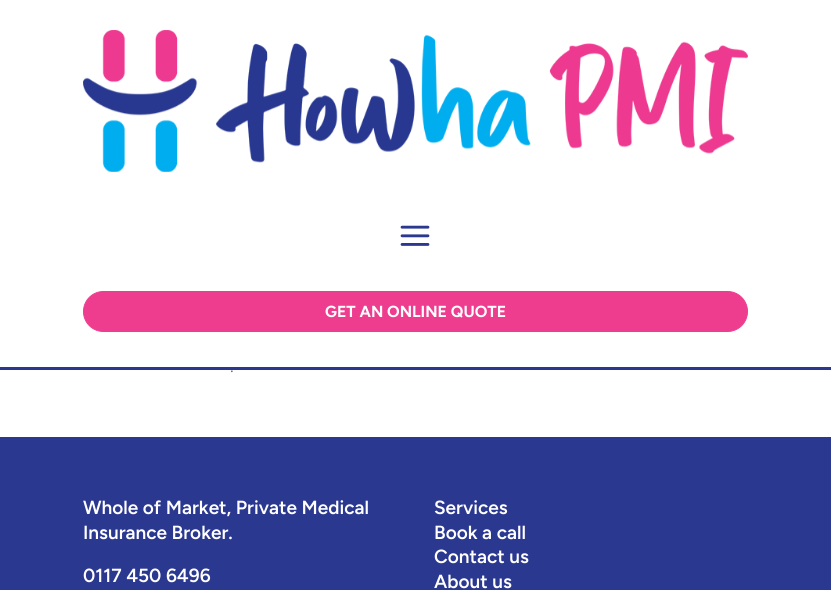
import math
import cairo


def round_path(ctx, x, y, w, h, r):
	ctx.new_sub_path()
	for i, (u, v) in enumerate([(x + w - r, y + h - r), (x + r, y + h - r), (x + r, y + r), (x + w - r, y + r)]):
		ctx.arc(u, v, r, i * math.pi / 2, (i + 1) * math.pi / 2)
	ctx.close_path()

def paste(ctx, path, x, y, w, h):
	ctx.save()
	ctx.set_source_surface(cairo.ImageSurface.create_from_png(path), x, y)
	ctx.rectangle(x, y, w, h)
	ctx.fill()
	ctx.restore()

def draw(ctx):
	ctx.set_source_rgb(1, 1, 1)
	ctx.paint()
	ctx.set_source_rgb(0.169, 0.22, 0.565)
	ctx.rectangle(0, 367, 831, 3)
	ctx.fill()
	paste(ctx, 'media/1.png', 83, 30, 665, 142)
	paste(ctx, 'media/2.png', 400, 225, 30, 21)
	ctx.set_source_rgb(0.933, 0.239, 0.561)
	round_path(ctx, 83.5, 291.5, 664, 40, 20)
	ctx.fill_preserve()
	ctx.set_line_width(1)
	ctx.stroke()
	ctx.select_font_face('Figtree', cairo.FONT_SLANT_NORMAL, cairo.FONT_WEIGHT_BOLD)
	ctx.set_font_size(16)
	ctx.set_source_rgb(1, 1, 1)
	ctx.move_to(325, 317)
	ctx.show_text('GET AN ONLINE QUOTE')
	ctx.select_font_face('Open Sans')
	ctx.set_font_size(14)
	ctx.set_source_rgb(0.4, 0.4, 0.4)
	ctx.move_to(230, 372)
	ctx.show_text('.')
	ctx.set_source_rgb(0.169, 0.22, 0.565)
	ctx.rectangle(0, 437, 831, 153)
	ctx.fill()
	ctx.select_font_face('Figtree SemiBold')
	ctx.set_font_size(19)
	ctx.set_source_rgb(1, 1, 1)
	for x, y, s in [
		(83, 514, 'Whole of Market, Private Medical'),
		(83, 539, 'Insurance Broker.'),
		(83, 582, '0117 450 6496'),
		(434, 514, 'Services'),
		(434, 539, 'Book a call'),
		(434, 563, 'Contact us'),
		(434, 588, 'About us'),
	]:
		ctx.move_to(x, y)
		ctx.show_text(s)


surface = cairo.ImageSurface(cairo.FORMAT_RGB24, 831, 590)
ctx = cairo.Context(surface)
options = cairo.FontOptions()
options.set_hint_metrics(cairo.HINT_METRICS_OFF)
options.set_hint_style(cairo.HINT_STYLE_NONE)
ctx.set_font_options(options)
ctx.set_miter_limit(4)
draw(ctx)
surface.write_to_png('image.png')
